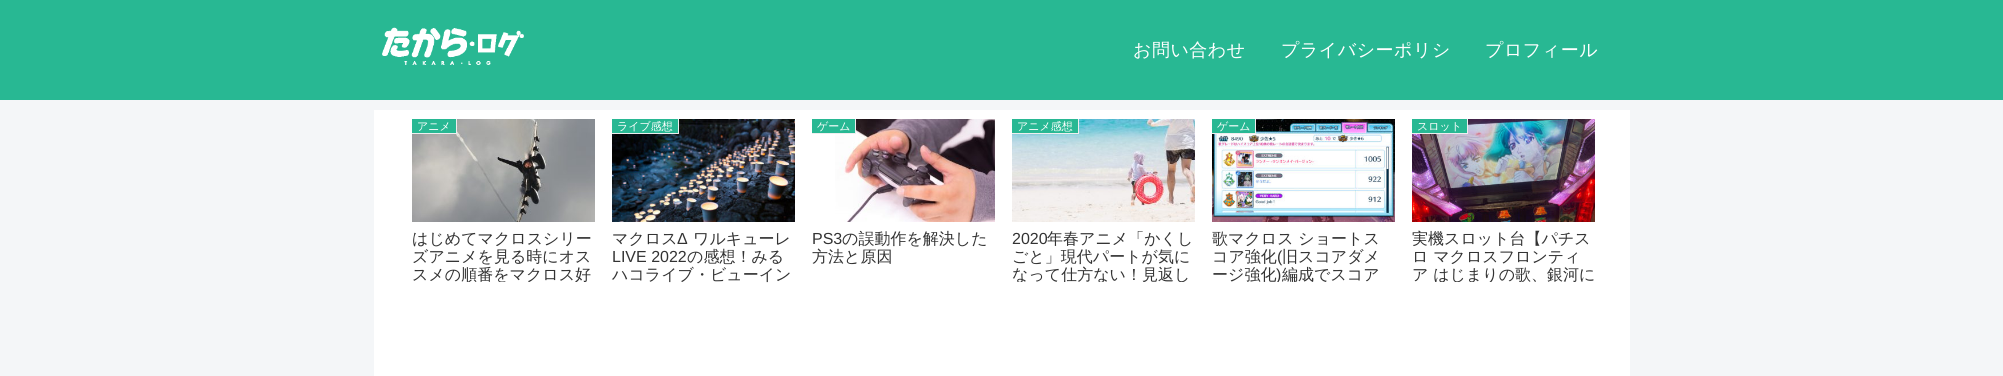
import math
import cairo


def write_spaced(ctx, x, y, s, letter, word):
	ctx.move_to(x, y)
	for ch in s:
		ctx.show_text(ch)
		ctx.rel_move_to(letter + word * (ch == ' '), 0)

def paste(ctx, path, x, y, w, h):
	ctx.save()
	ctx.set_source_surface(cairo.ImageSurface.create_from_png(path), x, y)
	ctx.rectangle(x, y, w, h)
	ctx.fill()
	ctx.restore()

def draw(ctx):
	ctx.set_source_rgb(0.957, 0.961, 0.969)
	ctx.paint()
	ctx.set_source_rgb(0.157, 0.722, 0.576)
	ctx.rectangle(0, 0, 2003, 100)
	ctx.fill()
	paste(ctx, 'media/1.png', 382, 27, 142, 38)
	ctx.select_font_face('WenQuanYi Zen Hei Medium')
	ctx.set_font_size(18)
	ctx.set_source_rgb(1, 1, 1)
	for x, y, s in [
		(1133, 56, 'お問い合わせ'),
		(1281, 56, 'プライバシーポリシ'),
		(1485, 56, 'プロフィール'),
	]:
		write_spaced(ctx, x, y, s, 0.5, 0)
	ctx.rectangle(374, 110, 1256, 266)
	ctx.fill()
	paste(ctx, 'media/2.png', 412, 119, 183, 103)
	ctx.set_source_rgb(0.157, 0.722, 0.576)
	ctx.rectangle(412, 119, 44, 14)
	ctx.fill()
	ctx.set_source_rgb(0.933, 0.933, 0.933)
	ctx.rectangle(456, 119, 1, 15)
	ctx.rectangle(412, 133, 45, 1)
	ctx.fill()
	ctx.set_font_size(11)
	ctx.set_source_rgb(1, 1, 1)
	ctx.move_to(417, 130)
	ctx.show_text('アニメ')
	ctx.set_font_size(16)
	ctx.set_source_rgb(0.2, 0.2, 0.2)
	ctx.move_to(412, 244)
	ctx.show_text('はじめてマクロスシリー')
	ctx.move_to(412, 262)
	ctx.show_text('ズアニメを見る時にオス')
	ctx.save()
	ctx.rectangle(412, 230, 183, 52)
	ctx.clip()
	ctx.move_to(412, 280)
	ctx.show_text('スメの順番をマクロス好')
	ctx.restore()
	paste(ctx, 'media/3.png', 612, 119, 183, 103)
	ctx.set_source_rgb(0.157, 0.722, 0.576)
	ctx.rectangle(612, 119, 66, 14)
	ctx.fill()
	ctx.set_source_rgb(0.933, 0.933, 0.933)
	ctx.rectangle(678, 119, 1, 15)
	ctx.rectangle(612, 133, 67, 1)
	ctx.fill()
	ctx.set_font_size(11)
	ctx.set_source_rgb(1, 1, 1)
	ctx.move_to(617, 130)
	ctx.show_text('ライブ感想')
	ctx.set_font_size(16)
	ctx.set_source_rgb(0.2, 0.2, 0.2)
	ctx.move_to(612, 244)
	ctx.show_text('マクロス')
	ctx.select_font_face('Liberation Sans')
	ctx.move_to(677, 244)
	ctx.show_text('Δ')
	ctx.select_font_face('WenQuanYi Zen Hei Medium')
	ctx.move_to(693, 244)
	ctx.show_text('ワルキューレ')
	ctx.select_font_face('Liberation Sans')
	ctx.move_to(612, 262)
	ctx.show_text('LIVE 2022')
	ctx.select_font_face('WenQuanYi Zen Hei Medium')
	ctx.move_to(687, 262)
	ctx.show_text('の感想！みる')
	ctx.move_to(612, 280)
	ctx.show_text('ハコライブ・ビューイン')
	paste(ctx, 'media/4.png', 835, 119, 160, 103)
	ctx.set_source_rgb(0.157, 0.722, 0.576)
	ctx.rectangle(812, 119, 43, 14)
	ctx.fill()
	ctx.set_source_rgb(0.933, 0.933, 0.933)
	ctx.rectangle(855, 119, 1, 15)
	ctx.rectangle(812, 133, 44, 1)
	ctx.fill()
	ctx.set_font_size(11)
	ctx.set_source_rgb(1, 1, 1)
	ctx.move_to(817, 130)
	ctx.show_text('ゲーム')
	ctx.select_font_face('Liberation Sans')
	ctx.set_font_size(16)
	ctx.set_source_rgb(0.2, 0.2, 0.2)
	ctx.move_to(812, 244)
	ctx.show_text('PS3')
	ctx.select_font_face('WenQuanYi Zen Hei Medium')
	ctx.move_to(842, 244)
	ctx.show_text('の誤動作を解決した')
	ctx.move_to(812, 262)
	ctx.show_text('方法と原因')
	paste(ctx, 'media/5.png', 1012, 119, 183, 103)
	ctx.set_source_rgb(0.157, 0.722, 0.576)
	ctx.rectangle(1012, 119, 66, 14)
	ctx.fill()
	ctx.set_source_rgb(0.933, 0.933, 0.933)
	ctx.rectangle(1078, 119, 1, 15)
	ctx.rectangle(1012, 133, 67, 1)
	ctx.fill()
	ctx.set_font_size(11)
	ctx.set_source_rgb(1, 1, 1)
	ctx.move_to(1017, 130)
	ctx.show_text('アニメ感想')
	ctx.select_font_face('Liberation Sans')
	ctx.set_font_size(16)
	ctx.set_source_rgb(0.2, 0.2, 0.2)
	ctx.move_to(1012, 244)
	ctx.show_text('2020')
	ctx.select_font_face('WenQuanYi Zen Hei Medium')
	ctx.move_to(1047, 244)
	ctx.show_text('年春アニメ「かくし')
	ctx.move_to(1012, 262)
	ctx.show_text('ごと」現代パートが気に')
	ctx.save()
	ctx.rectangle(1012, 230, 183, 52)
	ctx.clip()
	ctx.move_to(1012, 280)
	ctx.show_text('なって仕方ない！見返し')
	ctx.restore()
	paste(ctx, 'media/6.png', 1212, 119, 183, 103)
	ctx.set_source_rgb(0.157, 0.722, 0.576)
	ctx.rectangle(1212, 119, 43, 14)
	ctx.fill()
	ctx.set_source_rgb(0.933, 0.933, 0.933)
	ctx.rectangle(1255, 119, 1, 15)
	ctx.rectangle(1212, 133, 44, 1)
	ctx.fill()
	ctx.set_font_size(11)
	ctx.set_source_rgb(1, 1, 1)
	ctx.move_to(1217, 130)
	ctx.show_text('ゲーム')
	ctx.set_font_size(16)
	ctx.set_source_rgb(0.2, 0.2, 0.2)
	ctx.move_to(1212, 244)
	ctx.show_text('歌マクロス ショートス')
	ctx.move_to(1212, 262)
	ctx.show_text('コア強化')
	ctx.select_font_face('Liberation Sans')
	ctx.move_to(1277, 262)
	ctx.show_text('(')
	ctx.select_font_face('WenQuanYi Zen Hei Medium')
	ctx.move_to(1282, 262)
	ctx.show_text('旧スコアダメ')
	ctx.move_to(1212, 280)
	ctx.show_text('ージ強化')
	ctx.save()
	ctx.rectangle(1212, 230, 183, 52)
	ctx.clip()
	ctx.select_font_face('Liberation Sans')
	ctx.move_to(1276, 280)
	ctx.show_text(')')
	ctx.restore()
	ctx.move_to(1282, 280)
	ctx.show_text('編成でスコア')
	paste(ctx, 'media/7.png', 1412, 119, 183, 103)
	ctx.set_source_rgb(0.157, 0.722, 0.576)
	ctx.rectangle(1412, 119, 55, 14)
	ctx.fill()
	ctx.set_source_rgb(0.933, 0.933, 0.933)
	ctx.rectangle(1467, 119, 1, 15)
	ctx.rectangle(1412, 133, 56, 1)
	ctx.fill()
	ctx.set_font_size(11)
	ctx.set_source_rgb(1, 1, 1)
	ctx.move_to(1417, 130)
	ctx.show_text('スロット')
	ctx.set_font_size(16)
	ctx.set_source_rgb(0.2, 0.2, 0.2)
	ctx.move_to(1412, 244)
	ctx.show_text('実機スロット台【パチス')
	ctx.move_to(1412, 262)
	ctx.show_text('ロ マクロスフロンティ')
	ctx.save()
	ctx.rectangle(1412, 230, 183, 52)
	ctx.clip()
	ctx.move_to(1412, 280)
	ctx.show_text('ア はじまりの歌、銀河に')
	ctx.restore()


surface = cairo.ImageSurface(cairo.FORMAT_RGB24, 2003, 376)
ctx = cairo.Context(surface)
options = cairo.FontOptions()
options.set_hint_metrics(cairo.HINT_METRICS_OFF)
options.set_hint_style(cairo.HINT_STYLE_NONE)
ctx.set_font_options(options)
ctx.set_miter_limit(4)
draw(ctx)
surface.write_to_png('image.png')
